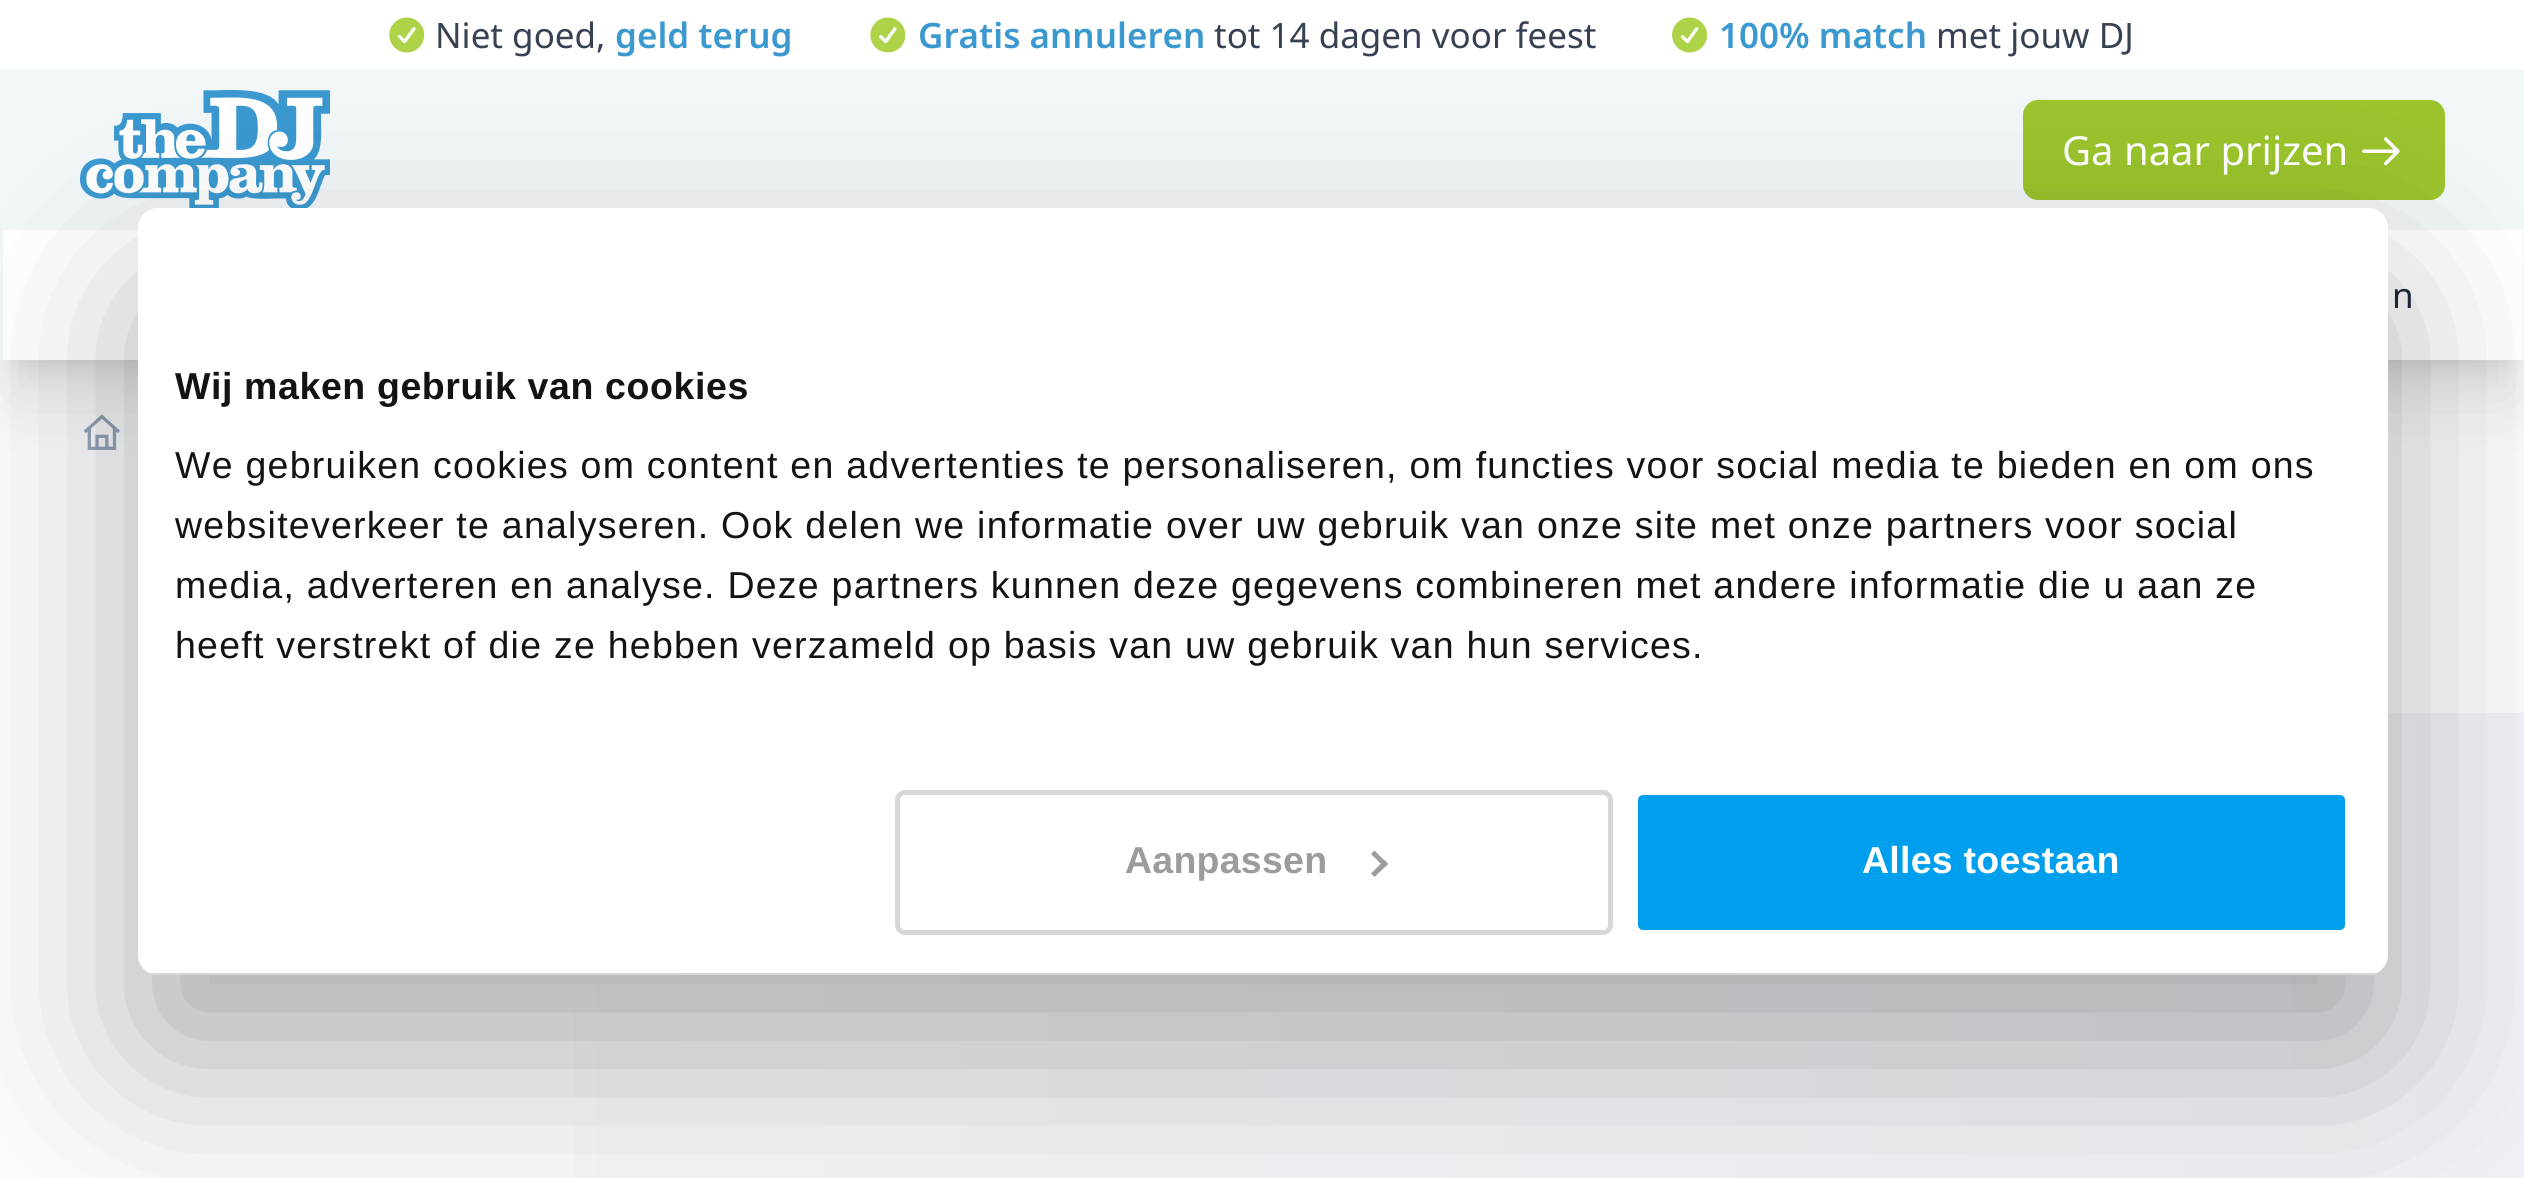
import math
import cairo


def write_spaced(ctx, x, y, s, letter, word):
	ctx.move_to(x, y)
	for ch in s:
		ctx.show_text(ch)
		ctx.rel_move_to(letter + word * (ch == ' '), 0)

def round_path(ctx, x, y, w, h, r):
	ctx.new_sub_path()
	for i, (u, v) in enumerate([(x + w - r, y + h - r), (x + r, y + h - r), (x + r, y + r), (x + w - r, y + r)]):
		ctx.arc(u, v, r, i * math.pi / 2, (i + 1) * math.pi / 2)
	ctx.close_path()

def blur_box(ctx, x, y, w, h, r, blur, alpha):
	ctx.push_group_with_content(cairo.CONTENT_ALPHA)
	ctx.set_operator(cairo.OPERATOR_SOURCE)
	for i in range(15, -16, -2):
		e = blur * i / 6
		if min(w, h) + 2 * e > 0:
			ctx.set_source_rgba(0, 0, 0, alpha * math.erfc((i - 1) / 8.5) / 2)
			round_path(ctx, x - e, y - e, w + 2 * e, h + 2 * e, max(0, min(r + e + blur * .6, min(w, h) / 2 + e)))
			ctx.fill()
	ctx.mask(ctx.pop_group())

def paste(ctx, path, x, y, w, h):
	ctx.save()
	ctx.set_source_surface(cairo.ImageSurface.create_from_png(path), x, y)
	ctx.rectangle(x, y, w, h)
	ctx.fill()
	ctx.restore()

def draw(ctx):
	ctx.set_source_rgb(0.973, 0.98, 0.988)
	ctx.paint()
	ctx.set_source_rgb(1, 1, 1)
	ctx.rectangle(0, 0, 2524, 70)
	ctx.fill()
	paste(ctx, 'media/1.png', 389, 17, 36, 36)
	ctx.select_font_face('Noto Sans')
	ctx.set_font_size(35)
	ctx.set_source_rgb(0.216, 0.255, 0.318)
	ctx.move_to(435, 48)
	ctx.show_text('Niet goed,')
	ctx.select_font_face('Noto Sans SemiBold')
	ctx.set_source_rgb(0.231, 0.6, 0.816)
	ctx.move_to(615, 48)
	ctx.show_text('geld terug')
	paste(ctx, 'media/2.png', 870, 17, 36, 36)
	ctx.move_to(918, 48)
	ctx.show_text('Gratis annuleren')
	ctx.select_font_face('Noto Sans')
	ctx.set_source_rgb(0.216, 0.255, 0.318)
	ctx.move_to(1214, 48)
	ctx.show_text('tot 14 dagen voor feest')
	paste(ctx, 'media/3.png', 1672, 17, 36, 36)
	ctx.select_font_face('Noto Sans SemiBold')
	ctx.set_source_rgb(0.231, 0.6, 0.816)
	ctx.move_to(1719, 48)
	ctx.show_text('100% match')
	ctx.select_font_face('Noto Sans')
	ctx.set_source_rgb(0.216, 0.255, 0.318)
	ctx.move_to(1936, 48)
	ctx.show_text('met jouw DJ')
	ctx.set_source_rgb(0.945, 0.961, 0.976)
	ctx.rectangle(0, 70, 2524, 160)
	ctx.fill()
	paste(ctx, 'media/4.png', 80, 90, 250, 118)
	ctx.set_source_rgb(0.604, 0.765, 0.173)
	round_path(ctx, 2023, 100, 422, 100, 15)
	ctx.fill()
	ctx.set_font_size(40)
	ctx.set_source_rgb(1, 1, 1)
	ctx.move_to(2062, 165)
	ctx.show_text('Ga naar prijzen')
	paste(ctx, 'media/5.png', 2362, 137, 38, 29)
	ctx.set_source_rgb(0, 0, 0)
	blur_box(ctx, 15, 265, 2495, 100, 0, 12.5, 0.1)
	paste(ctx, 'media/6.png', 83, 414, 37, 36)
	blur_box(ctx, 13, 293, 2500, 105, 0, 31, 0.1)
	ctx.set_source_rgb(1, 1, 1)
	ctx.rectangle(3, 230, 135, 130)
	ctx.fill()
	ctx.set_source_rgb(0.945, 0.961, 0.976)
	ctx.rectangle(2523, 230, 1, 130)
	ctx.rectangle(0, 230, 3, 130)
	ctx.fill()
	ctx.set_source_rgb(1, 1, 1)
	ctx.rectangle(2388, 230, 135, 130)
	ctx.fill()
	ctx.set_font_size(35)
	ctx.set_source_rgb(0.118, 0.161, 0.231)
	ctx.move_to(2392, 308)
	ctx.show_text('n')
	gradient = cairo.LinearGradient(0, 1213, 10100, 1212)
	gradient.add_color_stop_rgba(0, 0.973, 0.98, 0.988, 1)
	gradient.add_color_stop_rgba(0.5, 0.886, 0.91, 0.941, 1)
	gradient.add_color_stop_rgba(1, 0.973, 0.98, 0.988, 1)
	ctx.set_source(gradient)
	ctx.rectangle(574, 713, 1950, 465)
	ctx.fill()
	ctx.set_source_rgb(0, 0, 0)
	blur_box(ctx, 138, 288, 2250, 767, 20, 85, 0.3)
	ctx.set_source_rgb(1, 1, 1)
	round_path(ctx, 138, 208, 2250, 767, 20)
	ctx.fill()
	ctx.select_font_face('Liberation Sans', cairo.FONT_SLANT_NORMAL, cairo.FONT_WEIGHT_BOLD)
	ctx.set_font_size(37.5)
	ctx.set_source_rgb(0.078, 0.078, 0.078)
	write_spaced(ctx, 175, 399, 'Wij maken gebruik van cookies', 0.6, 0)
	ctx.select_font_face('Liberation Sans')
	for x, y, s in [
		(175, 478, 'We gebruiken cookies om content en advertenties te personaliseren, om functies voor social media te bieden en om ons'),
		(175, 538, 'websiteverkeer te analyseren. Ook delen we informatie over uw gebruik van onze site met onze partners voor social'),
		(175, 598, 'media, adverteren en analyse. Deze partners kunnen deze gegevens combineren met andere informatie die u aan ze'),
		(175, 658, 'heeft verstrekt of die ze hebben verzameld op basis van uw gebruik van hun services.'),
	]:
		write_spaced(ctx, x, y, s, 1.25, 0)
	ctx.save()
	round_path(ctx, 138, 208, 2250, 767, 20)
	ctx.clip()
	ctx.set_source_rgb(0.839, 0.839, 0.839)
	ctx.rectangle(149, 973, 2228, 2)
	ctx.fill()
	ctx.restore()
	round_path(ctx, 897.5, 792.5, 713, 140, 7.5)
	ctx.set_source_rgb(0.843, 0.843, 0.843)
	ctx.set_line_width(5)
	ctx.stroke()
	ctx.select_font_face('Liberation Sans', cairo.FONT_SLANT_NORMAL, cairo.FONT_WEIGHT_BOLD)
	ctx.set_source_rgb(0.612, 0.612, 0.612)
	write_spaced(ctx, 1125, 873, 'Aanpassen', 0.25, 0)
	ctx.new_path()
	ctx.move_to(1374.5, 850.5)
	ctx.line_to(1388, 864)
	ctx.line_to(1384.5, 867.5)
	ctx.line_to(1371, 854)
	ctx.close_path()
	ctx.fill()
	ctx.new_path()
	ctx.move_to(1384.5, 860)
	ctx.line_to(1388, 864)
	ctx.line_to(1374.5, 877)
	ctx.line_to(1371, 873.5)
	ctx.close_path()
	ctx.fill()
	ctx.set_source_rgb(0, 0.624, 0.933)
	round_path(ctx, 1635.5, 792.5, 712, 140, 7.5)
	ctx.fill_preserve()
	ctx.set_source_rgb(1, 1, 1)
	ctx.stroke()
	write_spaced(ctx, 1862, 873, 'Alles toestaan', 0.25, 0)


surface = cairo.ImageSurface(cairo.FORMAT_RGB24, 2524, 1178)
ctx = cairo.Context(surface)
options = cairo.FontOptions()
options.set_hint_metrics(cairo.HINT_METRICS_OFF)
options.set_hint_style(cairo.HINT_STYLE_NONE)
ctx.set_font_options(options)
ctx.set_miter_limit(4)
draw(ctx)
surface.write_to_png('image.png')
